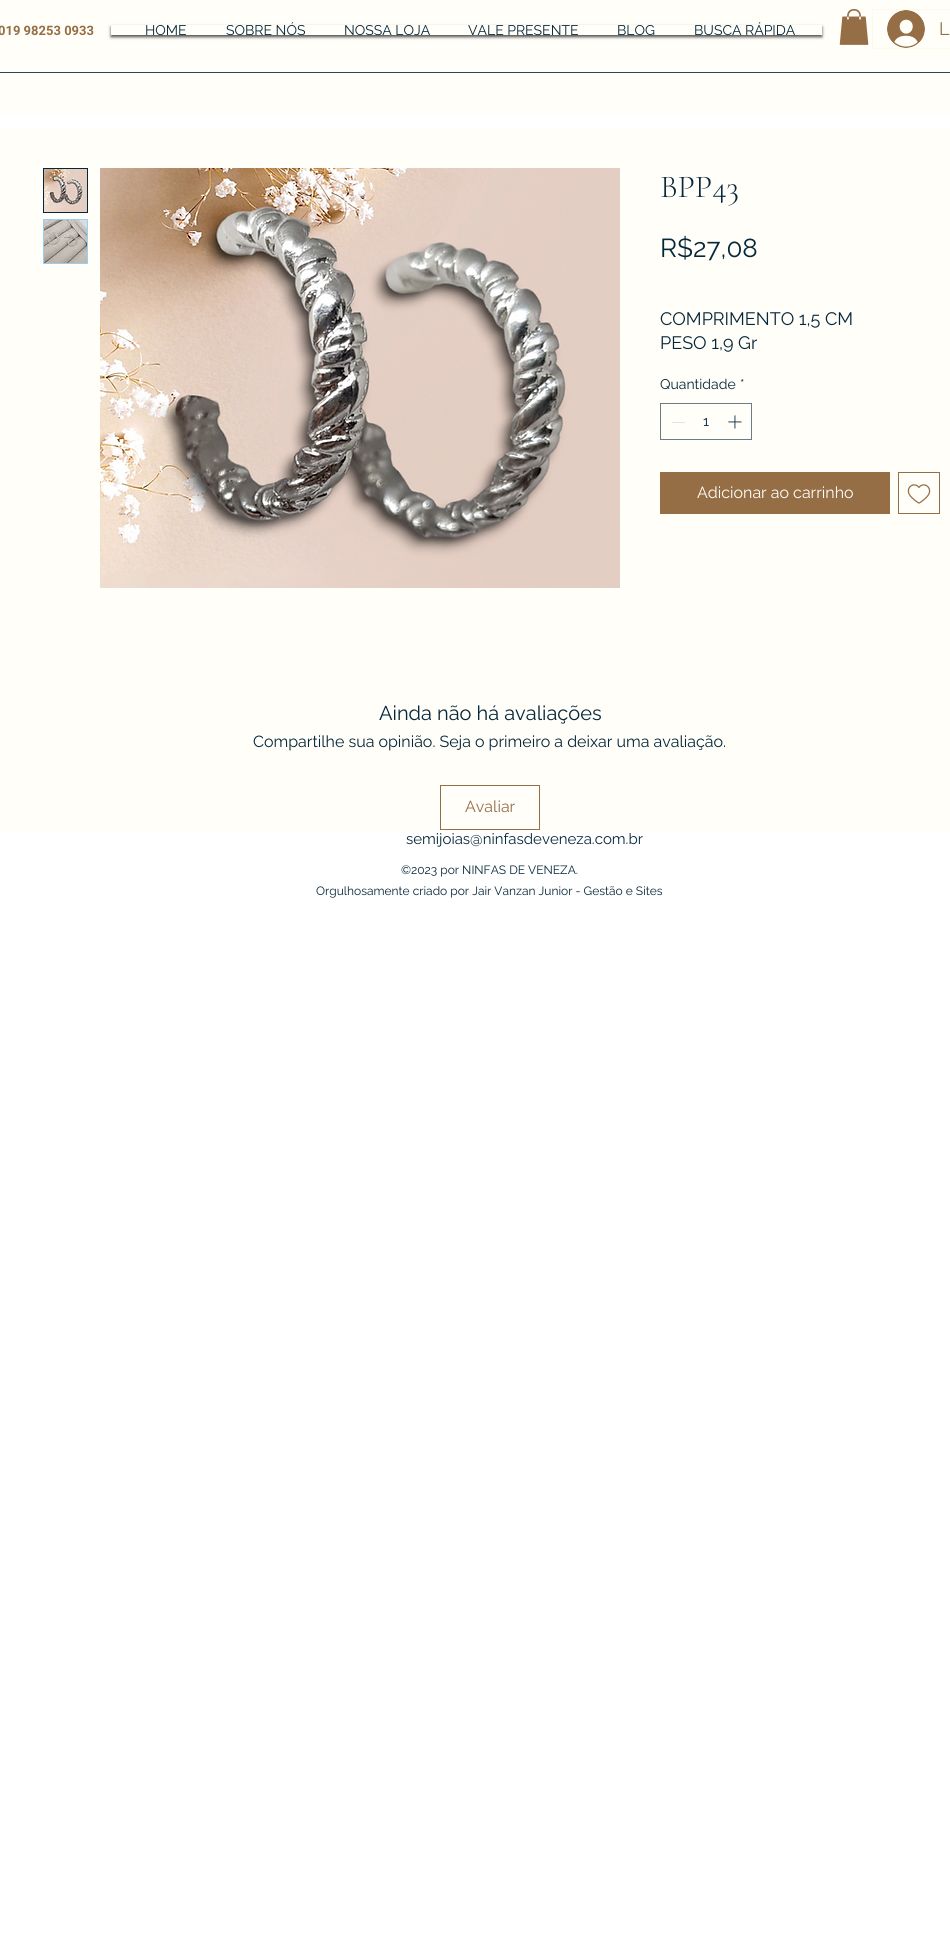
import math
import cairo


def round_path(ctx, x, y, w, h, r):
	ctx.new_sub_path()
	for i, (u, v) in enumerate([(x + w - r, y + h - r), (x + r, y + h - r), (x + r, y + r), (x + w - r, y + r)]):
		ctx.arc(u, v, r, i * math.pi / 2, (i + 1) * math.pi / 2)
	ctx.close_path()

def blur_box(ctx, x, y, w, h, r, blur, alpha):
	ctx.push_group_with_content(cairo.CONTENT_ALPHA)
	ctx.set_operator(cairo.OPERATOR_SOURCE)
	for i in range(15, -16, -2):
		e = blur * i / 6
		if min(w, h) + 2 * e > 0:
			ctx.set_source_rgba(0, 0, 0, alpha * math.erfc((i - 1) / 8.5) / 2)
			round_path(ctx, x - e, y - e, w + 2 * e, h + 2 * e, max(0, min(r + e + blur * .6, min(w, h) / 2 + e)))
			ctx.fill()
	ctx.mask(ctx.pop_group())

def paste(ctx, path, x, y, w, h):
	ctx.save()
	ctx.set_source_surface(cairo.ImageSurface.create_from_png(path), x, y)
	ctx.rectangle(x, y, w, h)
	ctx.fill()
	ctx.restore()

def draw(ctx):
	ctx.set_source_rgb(1, 1, 1)
	ctx.paint()
	ctx.set_source_rgb(1, 0.996, 0.973)
	ctx.rectangle(0, 0, 950, 114)
	ctx.fill()
	ctx.select_font_face('Roboto', cairo.FONT_SLANT_NORMAL, cairo.FONT_WEIGHT_BOLD)
	ctx.set_font_size(13)
	ctx.set_source_rgb(0.584, 0.431, 0.275)
	ctx.move_to(-2, 35)
	ctx.show_text('019 98253 0933')
	ctx.save()
	ctx.set_fill_rule(cairo.FILL_RULE_EVEN_ODD)
	ctx.new_path()
	ctx.move_to(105, 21)
	ctx.line_to(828, 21)
	ctx.line_to(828, 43)
	ctx.line_to(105, 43)
	ctx.close_path()
	ctx.move_to(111, 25)
	ctx.line_to(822, 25)
	ctx.line_to(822, 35)
	ctx.line_to(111, 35)
	ctx.close_path()
	ctx.clip()
	ctx.set_source_rgb(0, 0, 0)
	blur_box(ctx, 111, 27, 711, 10, 0, 1.5, 0.7)
	ctx.restore()
	ctx.select_font_face('Raleway')
	ctx.set_font_size(14)
	ctx.set_source_rgb(0.024, 0.153, 0.227)
	for x, y, s in [
		(145, 35, 'HOME'),
		(226, 35, 'SOBRE NÓS'),
		(344, 35, 'NOSSA LOJA'),
		(468, 35, 'VALE PRESENTE'),
		(617, 35, 'BLOG'),
		(694, 35, 'BUSCA RÁPIDA'),
	]:
		ctx.move_to(x, y)
		ctx.show_text(s)
	paste(ctx, 'media/1.png', 839, 9, 30, 36)
	ctx.rectangle(872.5, 9.5, 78, 39)
	ctx.set_source_rgb(1, 0.976, 0.925)
	ctx.set_line_width(1)
	ctx.stroke()
	paste(ctx, 'media/2.png', 887, 10, 38, 38)
	ctx.set_font_size(18)
	ctx.set_source_rgb(0.584, 0.431, 0.275)
	ctx.move_to(939, 35)
	ctx.show_text('L')
	ctx.set_source_rgb(0.169, 0.278, 0.341)
	ctx.rectangle(0, 72, 950, 1)
	ctx.fill()
	ctx.set_source_rgb(1, 0.996, 0.973)
	ctx.rectangle(0, 128, 950, 703)
	ctx.fill()
	ctx.rectangle(43.5, 168.5, 44, 44)
	ctx.set_source_rgb(0.024, 0.153, 0.227)
	ctx.stroke()
	paste(ctx, 'media/3.png', 44, 169, 43, 43)
	ctx.set_source_rgb(0.584, 0.82, 0.957)
	ctx.rectangle(43, 219, 45, 45)
	ctx.fill()
	paste(ctx, 'media/4.png', 44, 220, 43, 43)
	paste(ctx, 'media/5.png', 100, 168, 520, 420)
	ctx.select_font_face('Cormorant Garamond Light')
	ctx.set_font_size(32)
	ctx.set_source_rgb(0.024, 0.153, 0.227)
	ctx.move_to(660, 197)
	ctx.show_text('BPP43')
	ctx.select_font_face('Raleway')
	ctx.set_font_size(26)
	ctx.move_to(660, 257)
	ctx.show_text('R$27,08')
	ctx.set_font_size(18)
	ctx.move_to(660, 325)
	ctx.show_text('COMPRIMENTO 1,5 CM')
	ctx.move_to(660, 349)
	ctx.show_text('PESO 1,9 Gr')
	ctx.set_font_size(14)
	ctx.move_to(660, 389)
	ctx.show_text('Quantidade')
	ctx.move_to(740, 389)
	ctx.show_text('*')
	ctx.rectangle(660.5, 403.5, 91, 36)
	ctx.set_source_rgb(0.416, 0.49, 0.525)
	ctx.stroke()
	ctx.set_source_rgb(0.89, 0.89, 0.878)
	ctx.rectangle(672, 422, 13, 1)
	ctx.fill()
	ctx.set_source_rgb(0.024, 0.153, 0.227)
	ctx.move_to(703, 426)
	ctx.show_text('1')
	paste(ctx, 'media/6.png', 728, 415, 14, 14)
	ctx.set_source_rgb(0.584, 0.431, 0.275)
	ctx.rectangle(660, 472, 230, 42)
	ctx.fill()
	ctx.set_font_size(16)
	ctx.set_source_rgb(1, 0.996, 0.973)
	ctx.move_to(697, 498)
	ctx.show_text('Adicionar ao carrinho')
	ctx.rectangle(898.5, 472.5, 41, 41)
	ctx.set_source_rgb(0.584, 0.431, 0.275)
	ctx.stroke()
	paste(ctx, 'media/7.png', 907, 484, 24, 20)
	ctx.set_font_size(20)
	ctx.set_source_rgb(0.024, 0.153, 0.227)
	ctx.move_to(379, 720)
	ctx.show_text('Ainda não há avaliações')
	ctx.set_font_size(16)
	ctx.move_to(253, 747)
	ctx.show_text('Compartilhe sua opinião. Seja o primeiro a deixar uma avaliação.')
	ctx.rectangle(440.5, 785.5, 99, 44)
	ctx.set_source_rgb(0.584, 0.431, 0.275)
	ctx.stroke()
	ctx.move_to(465, 812)
	ctx.show_text('Avaliar')
	ctx.set_font_size(15)
	ctx.set_source_rgb(0.024, 0.153, 0.227)
	ctx.move_to(406, 844)
	ctx.show_text('semijoias@ninfasdeveneza.com.br')
	ctx.set_font_size(12)
	ctx.move_to(401, 874)
	ctx.show_text('©2023 por NINFAS DE VENEZA.')
	ctx.move_to(316, 895)
	ctx.show_text('Orgulhosamente criado por Jair Vanzan Junior - Gestão e Sites')


surface = cairo.ImageSurface(cairo.FORMAT_RGB24, 950, 1951)
ctx = cairo.Context(surface)
options = cairo.FontOptions()
options.set_hint_metrics(cairo.HINT_METRICS_OFF)
options.set_hint_style(cairo.HINT_STYLE_NONE)
ctx.set_font_options(options)
ctx.set_miter_limit(4)
draw(ctx)
surface.write_to_png('image.png')
